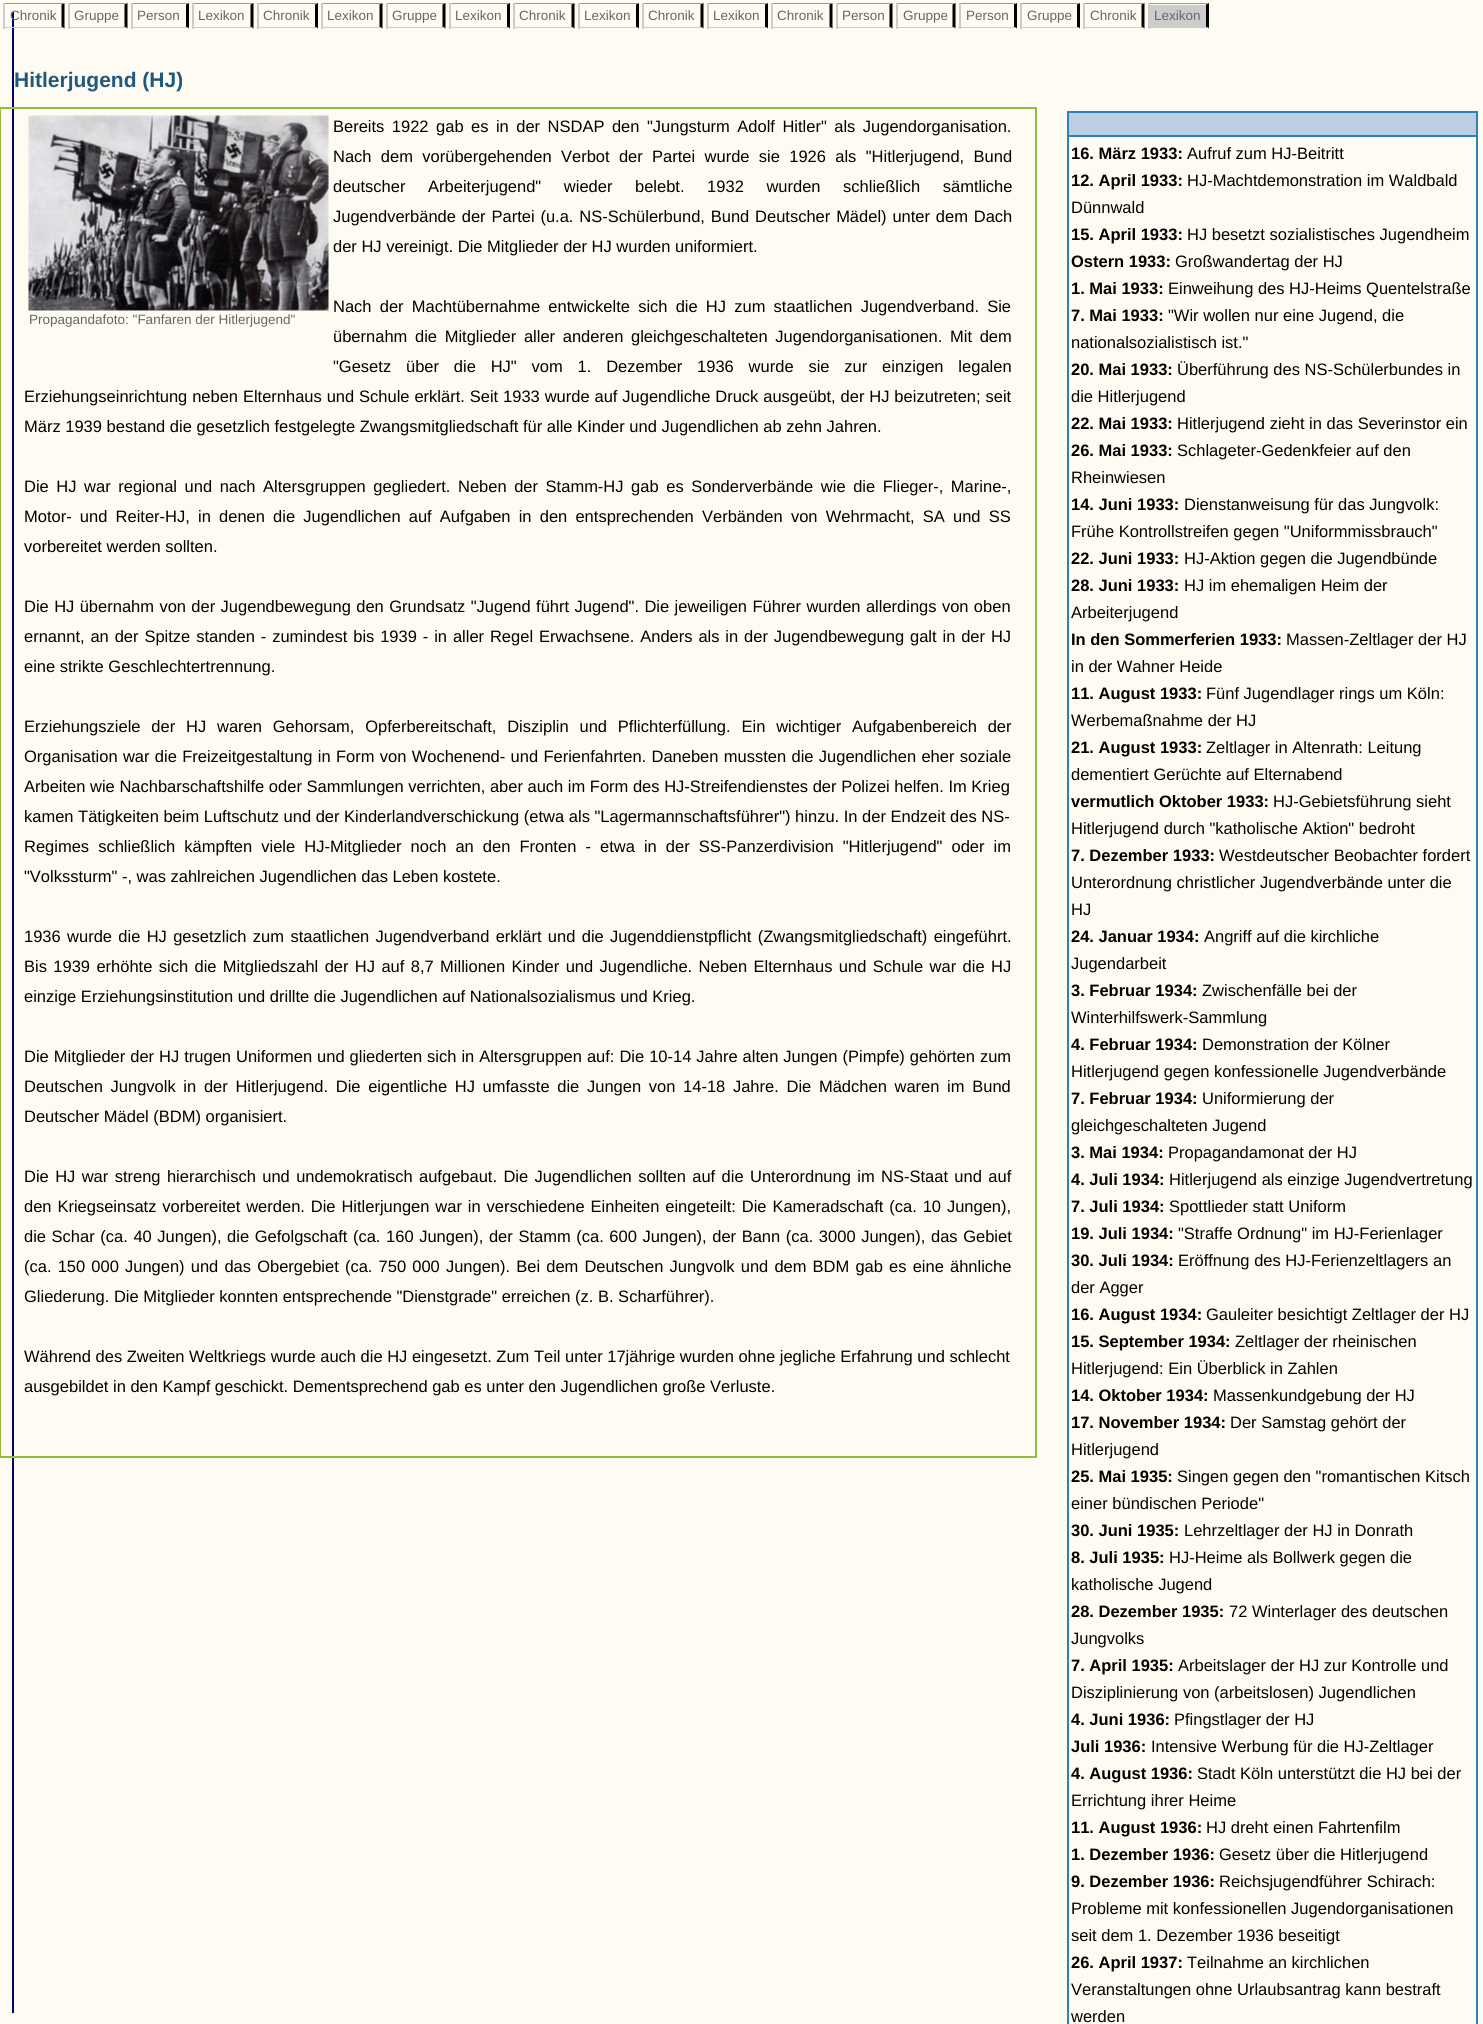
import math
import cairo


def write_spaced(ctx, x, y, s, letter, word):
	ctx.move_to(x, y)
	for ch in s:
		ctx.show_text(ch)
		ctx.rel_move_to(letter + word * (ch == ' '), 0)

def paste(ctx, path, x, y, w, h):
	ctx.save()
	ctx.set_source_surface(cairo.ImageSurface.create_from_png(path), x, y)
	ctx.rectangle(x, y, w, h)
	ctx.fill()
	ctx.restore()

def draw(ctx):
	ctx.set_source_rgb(0.996, 0.984, 0.953)
	ctx.paint()
	ctx.set_source_rgb(0, 0, 0.4)
	ctx.rectangle(12, 12, 2, 2001)
	ctx.fill()
	ctx.set_source_rgb(0.6, 0.6, 0.6)
	ctx.new_path()
	ctx.move_to(3, 3)
	ctx.line_to(64, 3)
	ctx.line_to(62, 4)
	ctx.line_to(4, 4)
	ctx.close_path()
	ctx.fill()
	ctx.set_source_rgb(0, 0, 0)
	ctx.new_path()
	ctx.move_to(64.5, 3)
	ctx.line_to(64.5, 28.5)
	ctx.line_to(61.5, 27)
	ctx.line_to(61.5, 4.5)
	ctx.close_path()
	ctx.fill()
	ctx.set_source_rgb(0.8, 0.8, 0.8)
	ctx.new_path()
	ctx.move_to(64, 28)
	ctx.line_to(3, 28)
	ctx.line_to(4, 27)
	ctx.line_to(62, 27)
	ctx.close_path()
	ctx.fill()
	ctx.rectangle(3, 3, 2, 26)
	ctx.fill()
	ctx.select_font_face('Liberation Sans')
	ctx.set_font_size(13.5)
	ctx.set_source_rgb(0.4, 0.4, 0.4)
	ctx.move_to(10, 20)
	ctx.show_text('Chronik')
	ctx.set_source_rgb(0.6, 0.6, 0.6)
	ctx.new_path()
	ctx.move_to(68, 3)
	ctx.line_to(128, 3)
	ctx.line_to(124, 4)
	ctx.line_to(69, 4)
	ctx.close_path()
	ctx.fill()
	ctx.set_source_rgb(0, 0, 0)
	ctx.new_path()
	ctx.move_to(127.5, 3)
	ctx.line_to(127.5, 28.5)
	ctx.line_to(124.5, 27)
	ctx.line_to(124.5, 4.5)
	ctx.close_path()
	ctx.fill()
	ctx.set_source_rgb(0.8, 0.8, 0.8)
	ctx.new_path()
	ctx.move_to(128, 28)
	ctx.line_to(68, 28)
	ctx.line_to(69, 27)
	ctx.line_to(124, 27)
	ctx.close_path()
	ctx.fill()
	ctx.rectangle(68, 3, 2, 26)
	ctx.fill()
	ctx.set_source_rgb(0.4, 0.4, 0.4)
	ctx.move_to(74, 20)
	ctx.show_text('Gruppe')
	ctx.set_source_rgb(0.6, 0.6, 0.6)
	ctx.new_path()
	ctx.move_to(130, 3)
	ctx.line_to(189, 3)
	ctx.line_to(186, 4)
	ctx.line_to(132, 4)
	ctx.close_path()
	ctx.fill()
	ctx.set_source_rgb(0, 0, 0)
	ctx.new_path()
	ctx.move_to(189, 3)
	ctx.line_to(189, 28.5)
	ctx.line_to(186, 27)
	ctx.line_to(186, 4.5)
	ctx.close_path()
	ctx.fill()
	ctx.set_source_rgb(0.8, 0.8, 0.8)
	ctx.new_path()
	ctx.move_to(189, 28)
	ctx.line_to(130, 28)
	ctx.line_to(132, 27)
	ctx.line_to(186, 27)
	ctx.close_path()
	ctx.fill()
	ctx.rectangle(131, 3, 2, 26)
	ctx.fill()
	ctx.set_source_rgb(0.4, 0.4, 0.4)
	ctx.move_to(137, 20)
	ctx.show_text('Person')
	ctx.set_source_rgb(0.6, 0.6, 0.6)
	ctx.new_path()
	ctx.move_to(192, 3)
	ctx.line_to(254, 3)
	ctx.line_to(250, 4)
	ctx.line_to(194, 4)
	ctx.close_path()
	ctx.fill()
	ctx.set_source_rgb(0, 0, 0)
	ctx.new_path()
	ctx.move_to(253.5, 3)
	ctx.line_to(253.5, 28.5)
	ctx.line_to(250.5, 27)
	ctx.line_to(250.5, 4.5)
	ctx.close_path()
	ctx.fill()
	ctx.set_source_rgb(0.8, 0.8, 0.8)
	ctx.new_path()
	ctx.move_to(254, 28)
	ctx.line_to(192, 28)
	ctx.line_to(194, 27)
	ctx.line_to(250, 27)
	ctx.close_path()
	ctx.fill()
	ctx.rectangle(192, 3, 2, 26)
	ctx.fill()
	ctx.set_source_rgb(0.4, 0.4, 0.4)
	ctx.move_to(198, 20)
	ctx.show_text('Lexikon')
	ctx.set_source_rgb(0.6, 0.6, 0.6)
	ctx.new_path()
	ctx.move_to(256, 3)
	ctx.line_to(318, 3)
	ctx.line_to(315, 4)
	ctx.line_to(258, 4)
	ctx.close_path()
	ctx.fill()
	ctx.set_source_rgb(0, 0, 0)
	ctx.new_path()
	ctx.move_to(318, 3)
	ctx.line_to(318, 28.5)
	ctx.line_to(315, 27)
	ctx.line_to(315, 4.5)
	ctx.close_path()
	ctx.fill()
	ctx.set_source_rgb(0.8, 0.8, 0.8)
	ctx.new_path()
	ctx.move_to(318, 28)
	ctx.line_to(256, 28)
	ctx.line_to(258, 27)
	ctx.line_to(315, 27)
	ctx.close_path()
	ctx.fill()
	ctx.rectangle(257, 3, 2, 26)
	ctx.fill()
	ctx.set_source_rgb(0.4, 0.4, 0.4)
	ctx.move_to(263, 20)
	ctx.show_text('Chronik')
	ctx.set_source_rgb(0.6, 0.6, 0.6)
	ctx.new_path()
	ctx.move_to(321, 3)
	ctx.line_to(382, 3)
	ctx.line_to(380, 4)
	ctx.line_to(322, 4)
	ctx.close_path()
	ctx.fill()
	ctx.set_source_rgb(0, 0, 0)
	ctx.new_path()
	ctx.move_to(382.5, 3)
	ctx.line_to(382.5, 28.5)
	ctx.line_to(379.5, 27)
	ctx.line_to(379.5, 4.5)
	ctx.close_path()
	ctx.fill()
	ctx.set_source_rgb(0.8, 0.8, 0.8)
	ctx.new_path()
	ctx.move_to(382, 28)
	ctx.line_to(321, 28)
	ctx.line_to(322, 27)
	ctx.line_to(380, 27)
	ctx.close_path()
	ctx.fill()
	ctx.rectangle(321, 3, 2, 26)
	ctx.fill()
	ctx.set_source_rgb(0.4, 0.4, 0.4)
	ctx.move_to(327, 20)
	ctx.show_text('Lexikon')
	ctx.set_source_rgb(0.6, 0.6, 0.6)
	ctx.new_path()
	ctx.move_to(386, 3)
	ctx.line_to(446, 3)
	ctx.line_to(442, 4)
	ctx.line_to(387, 4)
	ctx.close_path()
	ctx.fill()
	ctx.set_source_rgb(0, 0, 0)
	ctx.new_path()
	ctx.move_to(445.5, 3)
	ctx.line_to(445.5, 28.5)
	ctx.line_to(442.5, 27)
	ctx.line_to(442.5, 4.5)
	ctx.close_path()
	ctx.fill()
	ctx.set_source_rgb(0.8, 0.8, 0.8)
	ctx.new_path()
	ctx.move_to(446, 28)
	ctx.line_to(386, 28)
	ctx.line_to(387, 27)
	ctx.line_to(442, 27)
	ctx.close_path()
	ctx.fill()
	ctx.rectangle(386, 3, 2, 26)
	ctx.fill()
	ctx.set_source_rgb(0.4, 0.4, 0.4)
	ctx.move_to(392, 20)
	ctx.show_text('Gruppe')
	ctx.set_source_rgb(0.6, 0.6, 0.6)
	ctx.new_path()
	ctx.move_to(448, 3)
	ctx.line_to(510, 3)
	ctx.line_to(507, 4)
	ctx.line_to(450, 4)
	ctx.close_path()
	ctx.fill()
	ctx.set_source_rgb(0, 0, 0)
	ctx.new_path()
	ctx.move_to(510, 3)
	ctx.line_to(510, 28.5)
	ctx.line_to(507, 27)
	ctx.line_to(507, 4.5)
	ctx.close_path()
	ctx.fill()
	ctx.set_source_rgb(0.8, 0.8, 0.8)
	ctx.new_path()
	ctx.move_to(510, 28)
	ctx.line_to(448, 28)
	ctx.line_to(450, 27)
	ctx.line_to(507, 27)
	ctx.close_path()
	ctx.fill()
	ctx.rectangle(449, 3, 2, 26)
	ctx.fill()
	ctx.set_source_rgb(0.4, 0.4, 0.4)
	ctx.move_to(455, 20)
	ctx.show_text('Lexikon')
	ctx.set_source_rgb(0.6, 0.6, 0.6)
	ctx.new_path()
	ctx.move_to(513, 3)
	ctx.line_to(574, 3)
	ctx.line_to(572, 4)
	ctx.line_to(514, 4)
	ctx.close_path()
	ctx.fill()
	ctx.set_source_rgb(0, 0, 0)
	ctx.new_path()
	ctx.move_to(574.5, 3)
	ctx.line_to(574.5, 28.5)
	ctx.line_to(571.5, 27)
	ctx.line_to(571.5, 4.5)
	ctx.close_path()
	ctx.fill()
	ctx.set_source_rgb(0.8, 0.8, 0.8)
	ctx.new_path()
	ctx.move_to(574, 28)
	ctx.line_to(513, 28)
	ctx.line_to(514, 27)
	ctx.line_to(572, 27)
	ctx.close_path()
	ctx.fill()
	ctx.rectangle(513, 3, 2, 26)
	ctx.fill()
	ctx.set_source_rgb(0.4, 0.4, 0.4)
	ctx.move_to(519, 20)
	ctx.show_text('Chronik')
	ctx.set_source_rgb(0.6, 0.6, 0.6)
	ctx.new_path()
	ctx.move_to(578, 3)
	ctx.line_to(639, 3)
	ctx.line_to(636, 4)
	ctx.line_to(579, 4)
	ctx.close_path()
	ctx.fill()
	ctx.set_source_rgb(0, 0, 0)
	ctx.new_path()
	ctx.move_to(639, 3)
	ctx.line_to(639, 28.5)
	ctx.line_to(636, 27)
	ctx.line_to(636, 4.5)
	ctx.close_path()
	ctx.fill()
	ctx.set_source_rgb(0.8, 0.8, 0.8)
	ctx.new_path()
	ctx.move_to(639, 28)
	ctx.line_to(578, 28)
	ctx.line_to(579, 27)
	ctx.line_to(636, 27)
	ctx.close_path()
	ctx.fill()
	ctx.rectangle(578, 3, 2, 26)
	ctx.fill()
	ctx.set_source_rgb(0.4, 0.4, 0.4)
	ctx.move_to(584, 20)
	ctx.show_text('Lexikon')
	ctx.set_source_rgb(0.6, 0.6, 0.6)
	ctx.new_path()
	ctx.move_to(642, 3)
	ctx.line_to(704, 3)
	ctx.line_to(700, 4)
	ctx.line_to(644, 4)
	ctx.close_path()
	ctx.fill()
	ctx.set_source_rgb(0, 0, 0)
	ctx.new_path()
	ctx.move_to(703.5, 3)
	ctx.line_to(703.5, 28.5)
	ctx.line_to(700.5, 27)
	ctx.line_to(700.5, 4.5)
	ctx.close_path()
	ctx.fill()
	ctx.set_source_rgb(0.8, 0.8, 0.8)
	ctx.new_path()
	ctx.move_to(704, 28)
	ctx.line_to(642, 28)
	ctx.line_to(644, 27)
	ctx.line_to(700, 27)
	ctx.close_path()
	ctx.fill()
	ctx.rectangle(642, 3, 2, 26)
	ctx.fill()
	ctx.set_source_rgb(0.4, 0.4, 0.4)
	ctx.move_to(648, 20)
	ctx.show_text('Chronik')
	ctx.set_source_rgb(0.6, 0.6, 0.6)
	ctx.new_path()
	ctx.move_to(706, 3)
	ctx.line_to(768, 3)
	ctx.line_to(765, 4)
	ctx.line_to(708, 4)
	ctx.close_path()
	ctx.fill()
	ctx.set_source_rgb(0, 0, 0)
	ctx.new_path()
	ctx.move_to(768, 3)
	ctx.line_to(768, 28.5)
	ctx.line_to(765, 27)
	ctx.line_to(765, 4.5)
	ctx.close_path()
	ctx.fill()
	ctx.set_source_rgb(0.8, 0.8, 0.8)
	ctx.new_path()
	ctx.move_to(768, 28)
	ctx.line_to(706, 28)
	ctx.line_to(708, 27)
	ctx.line_to(765, 27)
	ctx.close_path()
	ctx.fill()
	ctx.rectangle(707, 3, 2, 26)
	ctx.fill()
	ctx.set_source_rgb(0.4, 0.4, 0.4)
	ctx.move_to(713, 20)
	ctx.show_text('Lexikon')
	ctx.set_source_rgb(0.6, 0.6, 0.6)
	ctx.new_path()
	ctx.move_to(771, 3)
	ctx.line_to(832, 3)
	ctx.line_to(830, 4)
	ctx.line_to(772, 4)
	ctx.close_path()
	ctx.fill()
	ctx.set_source_rgb(0, 0, 0)
	ctx.new_path()
	ctx.move_to(832.5, 3)
	ctx.line_to(832.5, 28.5)
	ctx.line_to(829.5, 27)
	ctx.line_to(829.5, 4.5)
	ctx.close_path()
	ctx.fill()
	ctx.set_source_rgb(0.8, 0.8, 0.8)
	ctx.new_path()
	ctx.move_to(832, 28)
	ctx.line_to(771, 28)
	ctx.line_to(772, 27)
	ctx.line_to(830, 27)
	ctx.close_path()
	ctx.fill()
	ctx.rectangle(771, 3, 2, 26)
	ctx.fill()
	ctx.set_source_rgb(0.4, 0.4, 0.4)
	ctx.move_to(777, 20)
	ctx.show_text('Chronik')
	ctx.set_source_rgb(0.6, 0.6, 0.6)
	ctx.new_path()
	ctx.move_to(836, 3)
	ctx.line_to(892, 3)
	ctx.line_to(890, 4)
	ctx.line_to(837, 4)
	ctx.close_path()
	ctx.fill()
	ctx.set_source_rgb(0, 0, 0)
	ctx.new_path()
	ctx.move_to(892.5, 3)
	ctx.line_to(892.5, 28.5)
	ctx.line_to(889.5, 27)
	ctx.line_to(889.5, 4.5)
	ctx.close_path()
	ctx.fill()
	ctx.set_source_rgb(0.8, 0.8, 0.8)
	ctx.new_path()
	ctx.move_to(892, 28)
	ctx.line_to(836, 28)
	ctx.line_to(837, 27)
	ctx.line_to(890, 27)
	ctx.close_path()
	ctx.fill()
	ctx.rectangle(836, 3, 2, 26)
	ctx.fill()
	ctx.set_source_rgb(0.4, 0.4, 0.4)
	ctx.move_to(842, 20)
	ctx.show_text('Person')
	ctx.set_source_rgb(0.6, 0.6, 0.6)
	ctx.new_path()
	ctx.move_to(896, 3)
	ctx.line_to(956, 3)
	ctx.line_to(952, 4)
	ctx.line_to(897, 4)
	ctx.close_path()
	ctx.fill()
	ctx.set_source_rgb(0, 0, 0)
	ctx.new_path()
	ctx.move_to(955.5, 3)
	ctx.line_to(955.5, 28.5)
	ctx.line_to(952.5, 27)
	ctx.line_to(952.5, 4.5)
	ctx.close_path()
	ctx.fill()
	ctx.set_source_rgb(0.8, 0.8, 0.8)
	ctx.new_path()
	ctx.move_to(956, 28)
	ctx.line_to(896, 28)
	ctx.line_to(897, 27)
	ctx.line_to(952, 27)
	ctx.close_path()
	ctx.fill()
	ctx.rectangle(896, 3, 2, 26)
	ctx.fill()
	ctx.set_source_rgb(0.4, 0.4, 0.4)
	ctx.move_to(903, 20)
	ctx.show_text('Gruppe')
	ctx.set_source_rgb(0.6, 0.6, 0.6)
	ctx.new_path()
	ctx.move_to(958, 3)
	ctx.line_to(1017, 3)
	ctx.line_to(1014, 4)
	ctx.line_to(960, 4)
	ctx.close_path()
	ctx.fill()
	ctx.set_source_rgb(0, 0, 0)
	ctx.new_path()
	ctx.move_to(1017, 3)
	ctx.line_to(1017, 28.5)
	ctx.line_to(1014, 27)
	ctx.line_to(1014, 4.5)
	ctx.close_path()
	ctx.fill()
	ctx.set_source_rgb(0.8, 0.8, 0.8)
	ctx.new_path()
	ctx.move_to(1017, 28)
	ctx.line_to(958, 28)
	ctx.line_to(960, 27)
	ctx.line_to(1014, 27)
	ctx.close_path()
	ctx.fill()
	ctx.rectangle(959, 3, 2, 26)
	ctx.fill()
	ctx.set_source_rgb(0.4, 0.4, 0.4)
	ctx.move_to(966, 20)
	ctx.show_text('Person')
	ctx.set_source_rgb(0.6, 0.6, 0.6)
	ctx.new_path()
	ctx.move_to(1020, 3)
	ctx.line_to(1080, 3)
	ctx.line_to(1077, 4)
	ctx.line_to(1022, 4)
	ctx.close_path()
	ctx.fill()
	ctx.set_source_rgb(0, 0, 0)
	ctx.new_path()
	ctx.move_to(1080, 3)
	ctx.line_to(1080, 28.5)
	ctx.line_to(1077, 27)
	ctx.line_to(1077, 4.5)
	ctx.close_path()
	ctx.fill()
	ctx.set_source_rgb(0.8, 0.8, 0.8)
	ctx.new_path()
	ctx.move_to(1080, 28)
	ctx.line_to(1020, 28)
	ctx.line_to(1022, 27)
	ctx.line_to(1077, 27)
	ctx.close_path()
	ctx.fill()
	ctx.rectangle(1020, 3, 2, 26)
	ctx.fill()
	ctx.set_source_rgb(0.4, 0.4, 0.4)
	ctx.move_to(1027, 20)
	ctx.show_text('Gruppe')
	ctx.set_source_rgb(0.6, 0.6, 0.6)
	ctx.new_path()
	ctx.move_to(1083, 3)
	ctx.line_to(1144, 3)
	ctx.line_to(1142, 4)
	ctx.line_to(1084, 4)
	ctx.close_path()
	ctx.fill()
	ctx.set_source_rgb(0, 0, 0)
	ctx.new_path()
	ctx.move_to(1144.5, 3)
	ctx.line_to(1144.5, 28.5)
	ctx.line_to(1141.5, 27)
	ctx.line_to(1141.5, 4.5)
	ctx.close_path()
	ctx.fill()
	ctx.set_source_rgb(0.8, 0.8, 0.8)
	ctx.new_path()
	ctx.move_to(1144, 28)
	ctx.line_to(1083, 28)
	ctx.line_to(1084, 27)
	ctx.line_to(1142, 27)
	ctx.close_path()
	ctx.fill()
	ctx.rectangle(1083, 3, 2, 26)
	ctx.fill()
	ctx.set_source_rgb(0.4, 0.4, 0.4)
	ctx.move_to(1090, 20)
	ctx.show_text('Chronik')
	ctx.set_source_rgb(0.8, 0.8, 0.8)
	ctx.rectangle(1150, 5, 56, 22)
	ctx.fill()
	ctx.set_source_rgb(0.6, 0.6, 0.6)
	ctx.new_path()
	ctx.move_to(1148, 3)
	ctx.line_to(1209, 3)
	ctx.line_to(1206, 4)
	ctx.line_to(1149, 4)
	ctx.close_path()
	ctx.fill()
	ctx.set_source_rgb(0, 0, 0)
	ctx.new_path()
	ctx.move_to(1209, 3)
	ctx.line_to(1209, 28.5)
	ctx.line_to(1206, 27)
	ctx.line_to(1206, 4.5)
	ctx.close_path()
	ctx.fill()
	ctx.set_source_rgb(0.8, 0.8, 0.8)
	ctx.new_path()
	ctx.move_to(1209, 28)
	ctx.line_to(1148, 28)
	ctx.line_to(1149, 27)
	ctx.line_to(1206, 27)
	ctx.close_path()
	ctx.fill()
	ctx.rectangle(1148, 3, 2, 26)
	ctx.fill()
	ctx.set_source_rgb(0.4, 0.4, 0.4)
	ctx.move_to(1154, 20)
	ctx.show_text('Lexikon')
	ctx.select_font_face('Liberation Sans', cairo.FONT_SLANT_NORMAL, cairo.FONT_WEIGHT_BOLD)
	ctx.set_font_size(21)
	ctx.set_source_rgb(0.122, 0.353, 0.494)
	ctx.move_to(14, 87)
	ctx.show_text('Hitlerjugend (HJ)')
	ctx.rectangle(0, 108, 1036, 1349)
	ctx.set_source_rgb(0.588, 0.737, 0.239)
	ctx.stroke()
	ctx.select_font_face('Liberation Sans')
	ctx.set_font_size(16.5)
	ctx.set_source_rgb(0, 0, 0)
	write_spaced(ctx, 333, 132, 'Bereits 1922 gab es in der NSDAP den "Jungsturm Adolf Hitler" als Jugendorganisation.', 0, 2.9)
	write_spaced(ctx, 333, 162, 'Nach dem vorübergehenden Verbot der Partei wurde sie 1926 als "Hitlerjugend, Bund', 0, 4.75)
	write_spaced(ctx, 333, 192, 'deutscher Arbeiterjugend" wieder belebt. 1932 wurden schließlich sämtliche', 0, 18)
	write_spaced(ctx, 333, 222, 'Jugendverbände der Partei (u.a. NS-Schülerbund, Bund Deutscher Mädel) unter dem Dach', 0, 1.25)
	ctx.move_to(333, 252)
	ctx.show_text('der HJ vereinigt. Die Mitglieder der HJ wurden uniformiert.')
	write_spaced(ctx, 333, 312, 'Nach der Machtübernahme entwickelte sich die HJ zum staatlichen Jugendverband. Sie', 0, 3.6)
	write_spaced(ctx, 333, 342, 'übernahm die Mitglieder aller anderen gleichgeschalteten Jugendorganisationen. Mit dem', 0, 3.1)
	write_spaced(ctx, 333, 372, '"Gesetz über die HJ" vom 1. Dezember 1936 wurde sie zur einzigen legalen', 0, 10.25)
	write_spaced(ctx, 24, 402, 'Erziehungseinrichtung neben Elternhaus und Schule erklärt. Seit 1933 wurde auf Jugendliche Druck ausgeübt, der HJ beizutreten; seit', 0, 0.3)
	ctx.move_to(24, 432)
	ctx.show_text('März 1939 bestand die gesetzlich festgelegte Zwangsmitgliedschaft für alle Kinder und Jugendlichen ab zehn Jahren.')
	write_spaced(ctx, 24, 492, 'Die HJ war regional und nach Altersgruppen gegliedert. Neben der Stamm-HJ gab es Sonderverbände wie die Flieger-, Marine-,', 0, 3)
	write_spaced(ctx, 24, 522, 'Motor- und Reiter-HJ, in denen die Jugendlichen auf Aufgaben in den entsprechenden Verbänden von Wehrmacht, SA und SS', 0, 3.6)
	ctx.move_to(24, 552)
	ctx.show_text('vorbereitet werden sollten.')
	write_spaced(ctx, 24, 612, 'Die HJ übernahm von der Jugendbewegung den Grundsatz "Jugend führt Jugend". Die jeweiligen Führer wurden allerdings von oben', 0, 0.8)
	write_spaced(ctx, 24, 642, 'ernannt, an der Spitze standen - zumindest bis 1939 - in aller Regel Erwachsene. Anders als in der Jugendbewegung galt in der HJ', 0, 1.3)
	ctx.move_to(24, 672)
	ctx.show_text('eine strikte Geschlechtertrennung.')
	write_spaced(ctx, 24, 732, 'Erziehungsziele der HJ waren Gehorsam, Opferbereitschaft, Disziplin und Pflichterfüllung. Ein wichtiger Aufgabenbereich der', 0, 6.25)
	write_spaced(ctx, 24, 762, 'Organisation war die Freizeitgestaltung in Form von Wochenend- und Ferienfahrten. Daneben mussten die Jugendlichen eher soziale', 0, 0.75)
	ctx.move_to(24, 792)
	ctx.show_text('Arbeiten wie Nachbarschaftshilfe oder Sammlungen verrichten, aber auch im Form des HJ-Streifendienstes der Polizei helfen. Im Krieg')
	ctx.move_to(24, 822)
	ctx.show_text('kamen Tätigkeiten beim Luftschutz und der Kinderlandverschickung (etwa als "Lagermannschaftsführer") hinzu. In der Endzeit des NS-')
	write_spaced(ctx, 24, 852, 'Regimes schließlich kämpften viele HJ-Mitglieder noch an den Fronten - etwa in der SS-Panzerdivision "Hitlerjugend" oder im', 0, 4.5)
	ctx.move_to(24, 882)
	ctx.show_text('"Volkssturm" -, was zahlreichen Jugendlichen das Leben kostete.')
	write_spaced(ctx, 24, 942, '1936 wurde die HJ gesetzlich zum staatlichen Jugendverband erklärt und die Jugenddienstpflicht (Zwangsmitgliedschaft) eingeführt.', 0, 1.75)
	write_spaced(ctx, 24, 972, 'Bis 1939 erhöhte sich die Mitgliedszahl der HJ auf 8,7 Millionen Kinder und Jugendliche. Neben Elternhaus und Schule war die HJ', 0, 1.8)
	ctx.move_to(24, 1002)
	ctx.show_text('einzige Erziehungsinstitution und drillte die Jugendlichen auf Nationalsozialismus und Krieg.')
	write_spaced(ctx, 24, 1062, 'Die Mitglieder der HJ trugen Uniformen und gliederten sich in Altersgruppen auf: Die 10-14 Jahre alten Jungen (Pimpfe) gehörten zum', 0, 0.4)
	write_spaced(ctx, 24, 1092, 'Deutschen Jungvolk in der Hitlerjugend. Die eigentliche HJ umfasste die Jungen von 14-18 Jahre. Die Mädchen waren im Bund', 0, 3.1)
	ctx.move_to(24, 1122)
	ctx.show_text('Deutscher Mädel (BDM) organisiert.')
	write_spaced(ctx, 24, 1182, 'Die HJ war streng hierarchisch und undemokratisch aufgebaut. Die Jugendlichen sollten auf die Unterordnung im NS-Staat und auf', 0, 1.8)
	write_spaced(ctx, 24, 1212, 'den Kriegseinsatz vorbereitet werden. Die Hitlerjungen war in verschiedene Einheiten eingeteilt: Die Kameradschaft (ca. 10 Jungen),', 0, 1.3)
	write_spaced(ctx, 24, 1242, 'die Schar (ca. 40 Jungen), die Gefolgschaft (ca. 160 Jungen), der Stamm (ca. 600 Jungen), der Bann (ca. 3000 Jungen), das Gebiet', 0, 1)
	write_spaced(ctx, 24, 1272, '(ca. 150 000 Jungen) und das Obergebiet (ca. 750 000 Jungen). Bei dem Deutschen Jungvolk und dem BDM gab es eine ähnliche', 0, 1.55)
	for x, y, s in [
		(24, 1302, 'Gliederung. Die Mitglieder konnten entsprechende "Dienstgrade" erreichen (z. B. Scharführer).'),
		(24, 1362, 'Während des Zweiten Weltkriegs wurde auch die HJ eingesetzt. Zum Teil unter 17jährige wurden ohne jegliche Erfahrung und schlecht'),
		(24, 1392, 'ausgebildet in den Kampf geschickt. Dementsprechend gab es unter den Jugendlichen große Verluste.'),
	]:
		ctx.move_to(x, y)
		ctx.show_text(s)
	paste(ctx, 'media/1.png', 28, 115, 301, 196)
	ctx.set_font_size(13.5)
	ctx.set_source_rgb(0.4, 0.4, 0.4)
	ctx.move_to(29, 324)
	ctx.show_text('Propagandafoto: "Fanfaren der Hitlerjugend"')
	ctx.set_source_rgb(0.745, 0.808, 0.886)
	ctx.rectangle(1069, 113, 407, 22)
	ctx.fill()
	ctx.set_source_rgb(0.176, 0.514, 0.722)
	ctx.rectangle(1067, 111, 411, 2)
	ctx.rectangle(1476, 111, 2, 24)
	ctx.rectangle(1067, 111, 2, 24)
	ctx.fill()
	ctx.rectangle(1068, 136, 409, 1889)
	ctx.stroke()
	ctx.select_font_face('Liberation Sans', cairo.FONT_SLANT_NORMAL, cairo.FONT_WEIGHT_BOLD)
	ctx.set_font_size(16.5)
	ctx.set_source_rgb(0, 0, 0)
	ctx.move_to(1071, 159)
	ctx.show_text('16. März 1933:')
	ctx.select_font_face('Liberation Sans')
	ctx.move_to(1187, 159)
	ctx.show_text('Aufruf zum HJ-Beitritt')
	ctx.select_font_face('Liberation Sans', cairo.FONT_SLANT_NORMAL, cairo.FONT_WEIGHT_BOLD)
	ctx.move_to(1071, 186)
	ctx.show_text('12. April 1933:')
	ctx.select_font_face('Liberation Sans')
	ctx.move_to(1187, 186)
	ctx.show_text('HJ-Machtdemonstration im Waldbald')
	ctx.move_to(1071, 213)
	ctx.show_text('Dünnwald')
	ctx.select_font_face('Liberation Sans', cairo.FONT_SLANT_NORMAL, cairo.FONT_WEIGHT_BOLD)
	ctx.move_to(1071, 240)
	ctx.show_text('15. April 1933:')
	ctx.select_font_face('Liberation Sans')
	ctx.move_to(1187, 240)
	ctx.show_text('HJ besetzt sozialistisches Jugendheim')
	ctx.select_font_face('Liberation Sans', cairo.FONT_SLANT_NORMAL, cairo.FONT_WEIGHT_BOLD)
	ctx.move_to(1071, 267)
	ctx.show_text('Ostern 1933:')
	ctx.select_font_face('Liberation Sans')
	ctx.move_to(1175, 267)
	ctx.show_text('Großwandertag der HJ')
	ctx.select_font_face('Liberation Sans', cairo.FONT_SLANT_NORMAL, cairo.FONT_WEIGHT_BOLD)
	ctx.move_to(1071, 294)
	ctx.show_text('1. Mai 1933:')
	ctx.select_font_face('Liberation Sans')
	ctx.move_to(1168, 294)
	ctx.show_text('Einweihung des HJ-Heims Quentelstraße')
	ctx.select_font_face('Liberation Sans', cairo.FONT_SLANT_NORMAL, cairo.FONT_WEIGHT_BOLD)
	ctx.move_to(1071, 321)
	ctx.show_text('7. Mai 1933:')
	ctx.select_font_face('Liberation Sans')
	ctx.move_to(1168, 321)
	ctx.show_text('"Wir wollen nur eine Jugend, die')
	ctx.move_to(1071, 348)
	ctx.show_text('nationalsozialistisch ist."')
	ctx.select_font_face('Liberation Sans', cairo.FONT_SLANT_NORMAL, cairo.FONT_WEIGHT_BOLD)
	ctx.move_to(1071, 375)
	ctx.show_text('20. Mai 1933:')
	ctx.select_font_face('Liberation Sans')
	ctx.move_to(1177, 375)
	ctx.show_text('Überführung des NS-Schülerbundes in')
	ctx.move_to(1071, 402)
	ctx.show_text('die Hitlerjugend')
	ctx.select_font_face('Liberation Sans', cairo.FONT_SLANT_NORMAL, cairo.FONT_WEIGHT_BOLD)
	ctx.move_to(1071, 429)
	ctx.show_text('22. Mai 1933:')
	ctx.select_font_face('Liberation Sans')
	ctx.move_to(1177, 429)
	ctx.show_text('Hitlerjugend zieht in das Severinstor ein')
	ctx.select_font_face('Liberation Sans', cairo.FONT_SLANT_NORMAL, cairo.FONT_WEIGHT_BOLD)
	ctx.move_to(1071, 456)
	ctx.show_text('26. Mai 1933:')
	ctx.select_font_face('Liberation Sans')
	ctx.move_to(1177, 456)
	ctx.show_text('Schlageter-Gedenkfeier auf den')
	ctx.move_to(1071, 483)
	ctx.show_text('Rheinwiesen')
	ctx.select_font_face('Liberation Sans', cairo.FONT_SLANT_NORMAL, cairo.FONT_WEIGHT_BOLD)
	ctx.move_to(1071, 510)
	ctx.show_text('14. Juni 1933:')
	ctx.select_font_face('Liberation Sans')
	ctx.move_to(1184, 510)
	ctx.show_text('Dienstanweisung für das Jungvolk:')
	ctx.move_to(1071, 537)
	ctx.show_text('Frühe Kontrollstreifen gegen "Uniformmissbrauch"')
	ctx.select_font_face('Liberation Sans', cairo.FONT_SLANT_NORMAL, cairo.FONT_WEIGHT_BOLD)
	ctx.move_to(1071, 564)
	ctx.show_text('22. Juni 1933:')
	ctx.select_font_face('Liberation Sans')
	ctx.move_to(1184, 564)
	ctx.show_text('HJ-Aktion gegen die Jugendbünde')
	ctx.select_font_face('Liberation Sans', cairo.FONT_SLANT_NORMAL, cairo.FONT_WEIGHT_BOLD)
	ctx.move_to(1071, 591)
	ctx.show_text('28. Juni 1933:')
	ctx.select_font_face('Liberation Sans')
	ctx.move_to(1184, 591)
	ctx.show_text('HJ im ehemaligen Heim der')
	ctx.move_to(1071, 618)
	ctx.show_text('Arbeiterjugend')
	ctx.select_font_face('Liberation Sans', cairo.FONT_SLANT_NORMAL, cairo.FONT_WEIGHT_BOLD)
	ctx.move_to(1071, 645)
	ctx.show_text('In den Sommerferien 1933:')
	ctx.select_font_face('Liberation Sans')
	ctx.move_to(1286, 645)
	ctx.show_text('Massen-Zeltlager der HJ')
	ctx.move_to(1071, 672)
	ctx.show_text('in der Wahner Heide')
	ctx.select_font_face('Liberation Sans', cairo.FONT_SLANT_NORMAL, cairo.FONT_WEIGHT_BOLD)
	ctx.move_to(1071, 699)
	ctx.show_text('11. August 1933:')
	ctx.select_font_face('Liberation Sans')
	ctx.move_to(1206, 699)
	ctx.show_text('Fünf Jugendlager rings um Köln:')
	ctx.move_to(1071, 726)
	ctx.show_text('Werbemaßnahme der HJ')
	ctx.select_font_face('Liberation Sans', cairo.FONT_SLANT_NORMAL, cairo.FONT_WEIGHT_BOLD)
	ctx.move_to(1071, 753)
	ctx.show_text('21. August 1933:')
	ctx.select_font_face('Liberation Sans')
	ctx.move_to(1206, 753)
	ctx.show_text('Zeltlager in Altenrath: Leitung')
	ctx.move_to(1071, 780)
	ctx.show_text('dementiert Gerüchte auf Elternabend')
	ctx.select_font_face('Liberation Sans', cairo.FONT_SLANT_NORMAL, cairo.FONT_WEIGHT_BOLD)
	ctx.move_to(1071, 807)
	ctx.show_text('vermutlich Oktober 1933:')
	ctx.select_font_face('Liberation Sans')
	ctx.move_to(1273, 807)
	ctx.show_text('HJ-Gebietsführung sieht')
	ctx.move_to(1071, 834)
	ctx.show_text('Hitlerjugend durch "katholische Aktion" bedroht')
	ctx.select_font_face('Liberation Sans', cairo.FONT_SLANT_NORMAL, cairo.FONT_WEIGHT_BOLD)
	ctx.move_to(1071, 861)
	ctx.show_text('7. Dezember 1933:')
	ctx.select_font_face('Liberation Sans')
	for x, y, s in [
		(1219, 861, 'Westdeutscher Beobachter fordert'),
		(1071, 888, 'Unterordnung christlicher Jugendverbände unter die'),
		(1071, 915, 'HJ'),
	]:
		ctx.move_to(x, y)
		ctx.show_text(s)
	ctx.select_font_face('Liberation Sans', cairo.FONT_SLANT_NORMAL, cairo.FONT_WEIGHT_BOLD)
	ctx.move_to(1071, 942)
	ctx.show_text('24. Januar 1934:')
	ctx.select_font_face('Liberation Sans')
	ctx.move_to(1204, 942)
	ctx.show_text('Angriff auf die kirchliche')
	ctx.move_to(1071, 969)
	ctx.show_text('Jugendarbeit')
	ctx.select_font_face('Liberation Sans', cairo.FONT_SLANT_NORMAL, cairo.FONT_WEIGHT_BOLD)
	ctx.move_to(1071, 996)
	ctx.show_text('3. Februar 1934:')
	ctx.select_font_face('Liberation Sans')
	ctx.move_to(1202, 996)
	ctx.show_text('Zwischenfälle bei der')
	ctx.move_to(1071, 1023)
	ctx.show_text('Winterhilfswerk-Sammlung')
	ctx.select_font_face('Liberation Sans', cairo.FONT_SLANT_NORMAL, cairo.FONT_WEIGHT_BOLD)
	ctx.move_to(1071, 1050)
	ctx.show_text('4. Februar 1934:')
	ctx.select_font_face('Liberation Sans')
	ctx.move_to(1202, 1050)
	ctx.show_text('Demonstration der Kölner')
	ctx.move_to(1071, 1077)
	ctx.show_text('Hitlerjugend gegen konfessionelle Jugendverbände')
	ctx.select_font_face('Liberation Sans', cairo.FONT_SLANT_NORMAL, cairo.FONT_WEIGHT_BOLD)
	ctx.move_to(1071, 1104)
	ctx.show_text('7. Februar 1934:')
	ctx.select_font_face('Liberation Sans')
	ctx.move_to(1202, 1104)
	ctx.show_text('Uniformierung der')
	ctx.move_to(1071, 1131)
	ctx.show_text('gleichgeschalteten Jugend')
	ctx.select_font_face('Liberation Sans', cairo.FONT_SLANT_NORMAL, cairo.FONT_WEIGHT_BOLD)
	ctx.move_to(1071, 1158)
	ctx.show_text('3. Mai 1934:')
	ctx.select_font_face('Liberation Sans')
	ctx.move_to(1168, 1158)
	ctx.show_text('Propagandamonat der HJ')
	ctx.select_font_face('Liberation Sans', cairo.FONT_SLANT_NORMAL, cairo.FONT_WEIGHT_BOLD)
	ctx.move_to(1071, 1185)
	ctx.show_text('4. Juli 1934:')
	ctx.select_font_face('Liberation Sans')
	ctx.move_to(1169, 1185)
	ctx.show_text('Hitlerjugend als einzige Jugendvertretung')
	ctx.select_font_face('Liberation Sans', cairo.FONT_SLANT_NORMAL, cairo.FONT_WEIGHT_BOLD)
	ctx.move_to(1071, 1212)
	ctx.show_text('7. Juli 1934:')
	ctx.select_font_face('Liberation Sans')
	ctx.move_to(1169, 1212)
	ctx.show_text('Spottlieder statt Uniform')
	ctx.select_font_face('Liberation Sans', cairo.FONT_SLANT_NORMAL, cairo.FONT_WEIGHT_BOLD)
	ctx.move_to(1071, 1239)
	ctx.show_text('19. Juli 1934:')
	ctx.select_font_face('Liberation Sans')
	ctx.move_to(1178, 1239)
	ctx.show_text('"Straffe Ordnung" im HJ-Ferienlager')
	ctx.select_font_face('Liberation Sans', cairo.FONT_SLANT_NORMAL, cairo.FONT_WEIGHT_BOLD)
	ctx.move_to(1071, 1266)
	ctx.show_text('30. Juli 1934:')
	ctx.select_font_face('Liberation Sans')
	ctx.move_to(1178, 1266)
	ctx.show_text('Eröffnung des HJ-Ferienzeltlagers an')
	ctx.move_to(1071, 1293)
	ctx.show_text('der Agger')
	ctx.select_font_face('Liberation Sans', cairo.FONT_SLANT_NORMAL, cairo.FONT_WEIGHT_BOLD)
	ctx.move_to(1071, 1320)
	ctx.show_text('16. August 1934:')
	ctx.select_font_face('Liberation Sans')
	ctx.move_to(1206, 1320)
	ctx.show_text('Gauleiter besichtigt Zeltlager der HJ')
	ctx.select_font_face('Liberation Sans', cairo.FONT_SLANT_NORMAL, cairo.FONT_WEIGHT_BOLD)
	ctx.move_to(1071, 1347)
	ctx.show_text('15. September 1934:')
	ctx.select_font_face('Liberation Sans')
	ctx.move_to(1235, 1347)
	ctx.show_text('Zeltlager der rheinischen')
	ctx.move_to(1071, 1374)
	ctx.show_text('Hitlerjugend: Ein Überblick in Zahlen')
	ctx.select_font_face('Liberation Sans', cairo.FONT_SLANT_NORMAL, cairo.FONT_WEIGHT_BOLD)
	ctx.move_to(1071, 1401)
	ctx.show_text('14. Oktober 1934:')
	ctx.select_font_face('Liberation Sans')
	ctx.move_to(1213, 1401)
	ctx.show_text('Massenkundgebung der HJ')
	ctx.select_font_face('Liberation Sans', cairo.FONT_SLANT_NORMAL, cairo.FONT_WEIGHT_BOLD)
	ctx.move_to(1071, 1428)
	ctx.show_text('17. November 1934:')
	ctx.select_font_face('Liberation Sans')
	ctx.move_to(1230, 1428)
	ctx.show_text('Der Samstag gehört der')
	ctx.move_to(1071, 1455)
	ctx.show_text('Hitlerjugend')
	ctx.select_font_face('Liberation Sans', cairo.FONT_SLANT_NORMAL, cairo.FONT_WEIGHT_BOLD)
	ctx.move_to(1071, 1482)
	ctx.show_text('25. Mai 1935:')
	ctx.select_font_face('Liberation Sans')
	ctx.move_to(1177, 1482)
	ctx.show_text('Singen gegen den "romantischen Kitsch')
	ctx.move_to(1071, 1509)
	ctx.show_text('einer bündischen Periode"')
	ctx.select_font_face('Liberation Sans', cairo.FONT_SLANT_NORMAL, cairo.FONT_WEIGHT_BOLD)
	ctx.move_to(1071, 1536)
	ctx.show_text('30. Juni 1935:')
	ctx.select_font_face('Liberation Sans')
	ctx.move_to(1184, 1536)
	ctx.show_text('Lehrzeltlager der HJ in Donrath')
	ctx.select_font_face('Liberation Sans', cairo.FONT_SLANT_NORMAL, cairo.FONT_WEIGHT_BOLD)
	ctx.move_to(1071, 1563)
	ctx.show_text('8. Juli 1935:')
	ctx.select_font_face('Liberation Sans')
	ctx.move_to(1169, 1563)
	ctx.show_text('HJ-Heime als Bollwerk gegen die')
	ctx.move_to(1071, 1590)
	ctx.show_text('katholische Jugend')
	ctx.select_font_face('Liberation Sans', cairo.FONT_SLANT_NORMAL, cairo.FONT_WEIGHT_BOLD)
	ctx.move_to(1071, 1617)
	ctx.show_text('28. Dezember 1935:')
	ctx.select_font_face('Liberation Sans')
	ctx.move_to(1229, 1617)
	ctx.show_text('72 Winterlager des deutschen')
	ctx.move_to(1071, 1644)
	ctx.show_text('Jungvolks')
	ctx.select_font_face('Liberation Sans', cairo.FONT_SLANT_NORMAL, cairo.FONT_WEIGHT_BOLD)
	ctx.move_to(1071, 1671)
	ctx.show_text('7. April 1935:')
	ctx.select_font_face('Liberation Sans')
	ctx.move_to(1178, 1671)
	ctx.show_text('Arbeitslager der HJ zur Kontrolle und')
	ctx.move_to(1071, 1698)
	ctx.show_text('Disziplinierung von (arbeitslosen) Jugendlichen')
	ctx.select_font_face('Liberation Sans', cairo.FONT_SLANT_NORMAL, cairo.FONT_WEIGHT_BOLD)
	ctx.move_to(1071, 1725)
	ctx.show_text('4. Juni 1936:')
	ctx.select_font_face('Liberation Sans')
	ctx.move_to(1174, 1725)
	ctx.show_text('Pfingstlager der HJ')
	ctx.select_font_face('Liberation Sans', cairo.FONT_SLANT_NORMAL, cairo.FONT_WEIGHT_BOLD)
	ctx.move_to(1071, 1752)
	ctx.show_text('Juli 1936:')
	ctx.select_font_face('Liberation Sans')
	ctx.move_to(1151, 1752)
	ctx.show_text('Intensive Werbung für die HJ-Zeltlager')
	ctx.select_font_face('Liberation Sans', cairo.FONT_SLANT_NORMAL, cairo.FONT_WEIGHT_BOLD)
	ctx.move_to(1071, 1779)
	ctx.show_text('4. August 1936:')
	ctx.select_font_face('Liberation Sans')
	ctx.move_to(1197, 1779)
	ctx.show_text('Stadt Köln unterstützt die HJ bei der')
	ctx.move_to(1071, 1806)
	ctx.show_text('Errichtung ihrer Heime')
	ctx.select_font_face('Liberation Sans', cairo.FONT_SLANT_NORMAL, cairo.FONT_WEIGHT_BOLD)
	ctx.move_to(1071, 1833)
	ctx.show_text('11. August 1936:')
	ctx.select_font_face('Liberation Sans')
	ctx.move_to(1206, 1833)
	ctx.show_text('HJ dreht einen Fahrtenfilm')
	ctx.select_font_face('Liberation Sans', cairo.FONT_SLANT_NORMAL, cairo.FONT_WEIGHT_BOLD)
	ctx.move_to(1071, 1860)
	ctx.show_text('1. Dezember 1936:')
	ctx.select_font_face('Liberation Sans')
	ctx.move_to(1219, 1860)
	ctx.show_text('Gesetz über die Hitlerjugend')
	ctx.select_font_face('Liberation Sans', cairo.FONT_SLANT_NORMAL, cairo.FONT_WEIGHT_BOLD)
	ctx.move_to(1071, 1887)
	ctx.show_text('9. Dezember 1936:')
	ctx.select_font_face('Liberation Sans')
	for x, y, s in [
		(1219, 1887, 'Reichsjugendführer Schirach:'),
		(1071, 1914, 'Probleme mit konfessionellen Jugendorganisationen'),
		(1071, 1941, 'seit dem 1. Dezember 1936 beseitigt'),
	]:
		ctx.move_to(x, y)
		ctx.show_text(s)
	ctx.select_font_face('Liberation Sans', cairo.FONT_SLANT_NORMAL, cairo.FONT_WEIGHT_BOLD)
	ctx.move_to(1071, 1968)
	ctx.show_text('26. April 1937:')
	ctx.select_font_face('Liberation Sans')
	for x, y, s in [
		(1187, 1968, 'Teilnahme an kirchlichen'),
		(1071, 1995, 'Veranstaltungen ohne Urlaubsantrag kann bestraft'),
		(1071, 2022, 'werden'),
	]:
		ctx.move_to(x, y)
		ctx.show_text(s)


surface = cairo.ImageSurface(cairo.FORMAT_RGB24, 1483, 2024)
ctx = cairo.Context(surface)
options = cairo.FontOptions()
options.set_hint_metrics(cairo.HINT_METRICS_OFF)
options.set_hint_style(cairo.HINT_STYLE_NONE)
ctx.set_font_options(options)
ctx.set_miter_limit(4)
draw(ctx)
surface.write_to_png('image.png')
